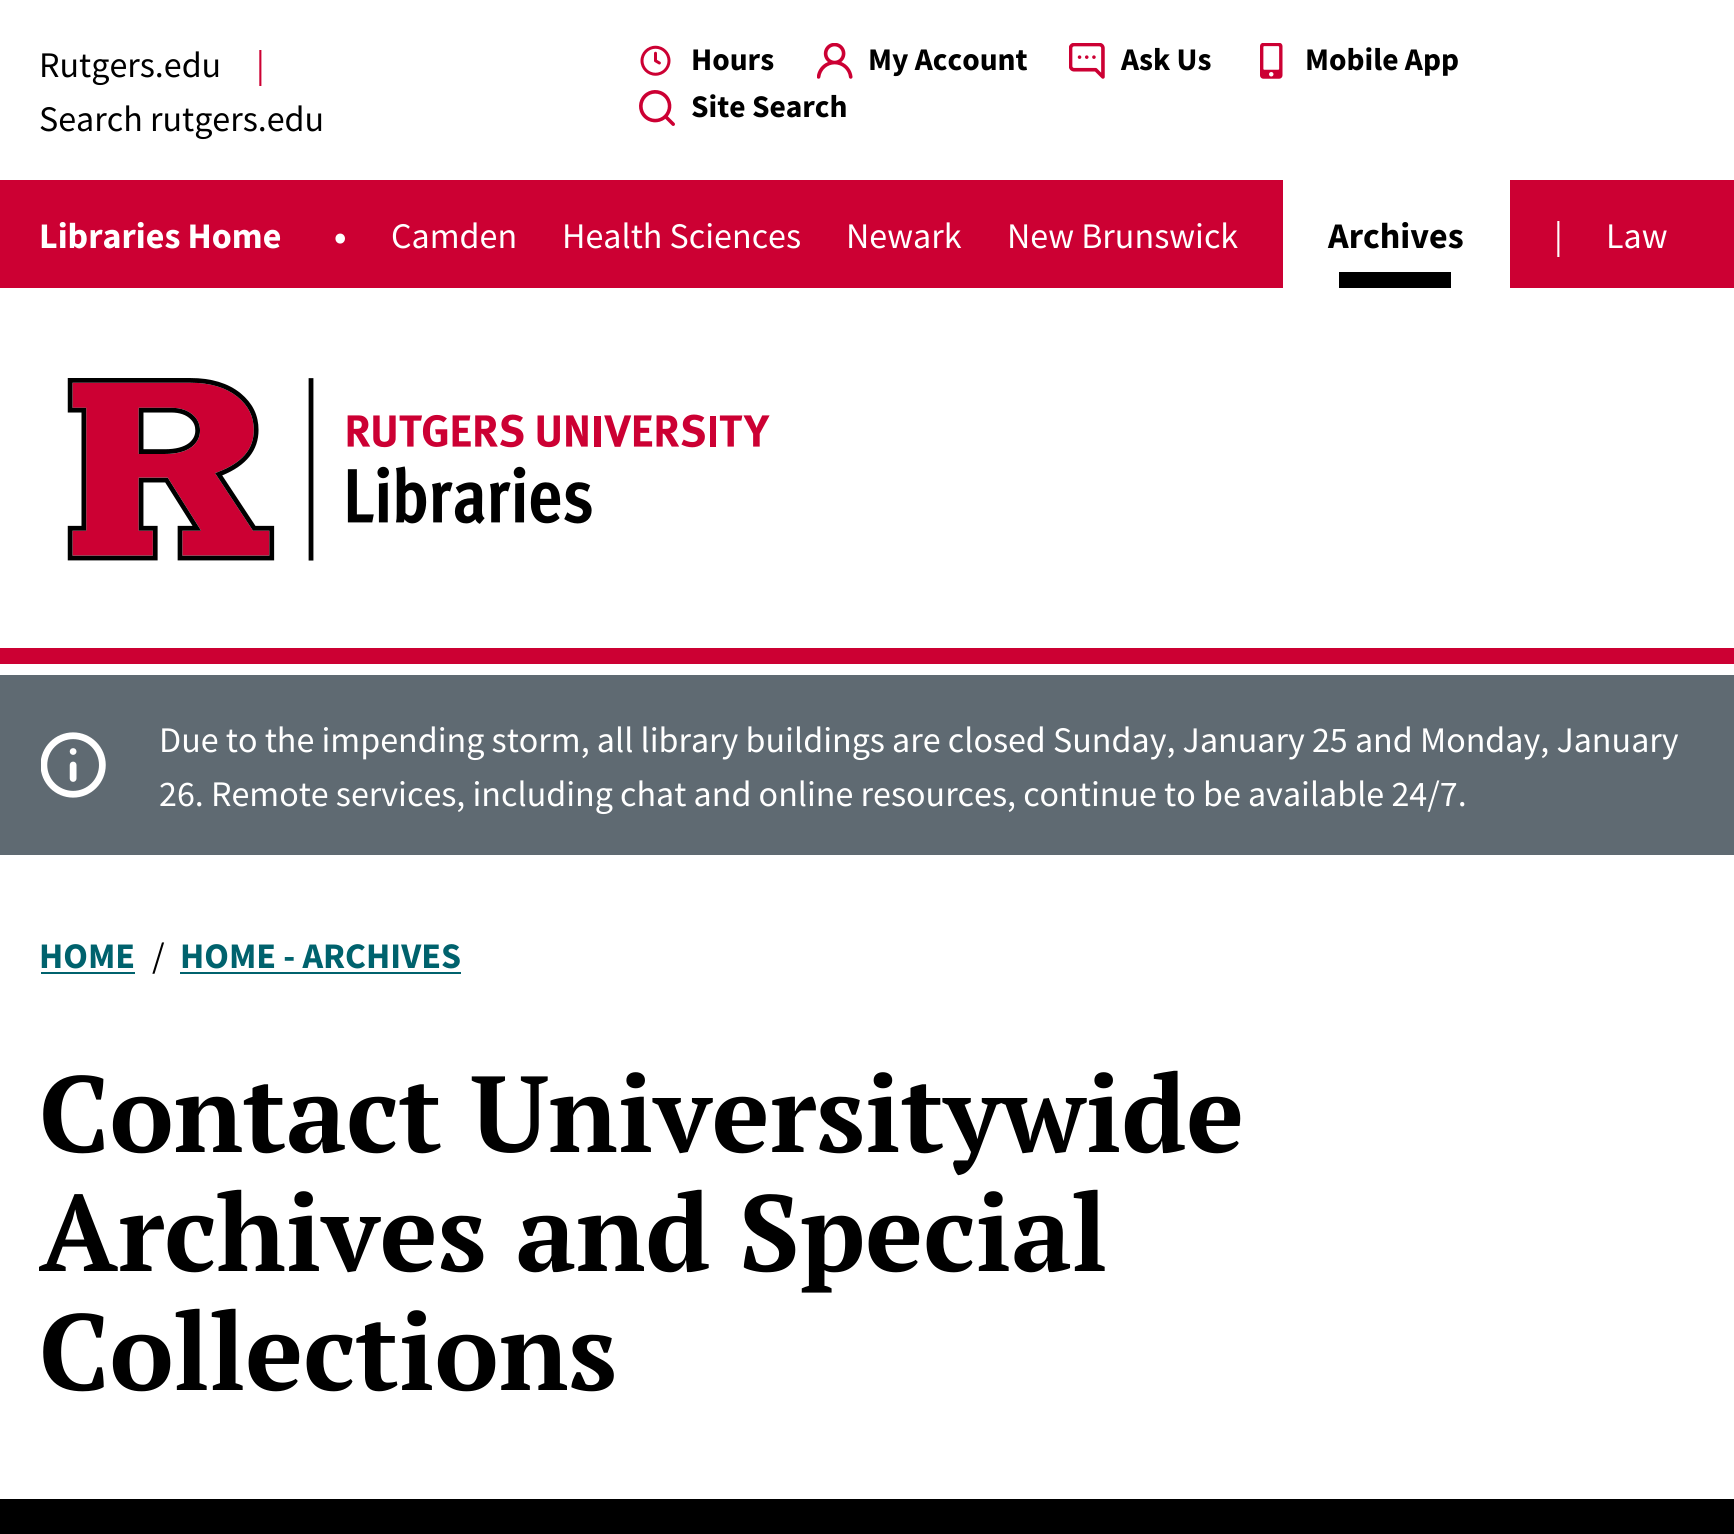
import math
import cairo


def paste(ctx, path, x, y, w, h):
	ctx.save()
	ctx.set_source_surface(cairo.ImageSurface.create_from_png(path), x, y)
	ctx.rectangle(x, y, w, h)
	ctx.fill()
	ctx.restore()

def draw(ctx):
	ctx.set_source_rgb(1, 1, 1)
	ctx.paint()
	ctx.select_font_face('Source Sans Pro')
	ctx.set_font_size(36)
	ctx.set_source_rgb(0, 0, 0)
	ctx.move_to(39, 77)
	ctx.show_text('Rutgers.edu')
	ctx.set_source_rgb(0.8, 0, 0.2)
	ctx.move_to(256, 77)
	ctx.show_text('|')
	ctx.set_source_rgb(0, 0, 0)
	ctx.move_to(39, 131)
	ctx.show_text('Search rutgers.edu')
	paste(ctx, 'media/1.png', 640, 45, 31, 31)
	ctx.select_font_face('Source Sans Pro', cairo.FONT_SLANT_NORMAL, cairo.FONT_WEIGHT_BOLD)
	ctx.set_font_size(31.5)
	ctx.move_to(691, 70)
	ctx.show_text('Hours')
	paste(ctx, 'media/2.png', 817, 43, 36, 36)
	ctx.move_to(868, 70)
	ctx.show_text('My Account')
	paste(ctx, 'media/3.png', 1069, 43, 36, 36)
	ctx.move_to(1121, 70)
	ctx.show_text('Ask Us')
	paste(ctx, 'media/4.png', 1260, 43, 23, 36)
	ctx.move_to(1305, 70)
	ctx.show_text('Mobile App')
	paste(ctx, 'media/5.png', 639, 90, 36, 36)
	ctx.move_to(691, 117)
	ctx.show_text('Site Search')
	ctx.set_source_rgb(0.8, 0, 0.2)
	ctx.rectangle(0, 180, 1734, 108)
	ctx.fill()
	ctx.set_font_size(36)
	ctx.set_source_rgb(1, 1, 1)
	ctx.move_to(39, 248)
	ctx.show_text('Libraries Home')
	ctx.move_to(334, 248)
	ctx.show_text('•')
	ctx.select_font_face('Source Sans Pro')
	for x, y, s in [
		(391, 248, 'Camden'),
		(562, 248, 'Health Sciences'),
		(846, 248, 'Newark'),
		(1007, 248, 'New Brunswick'),
	]:
		ctx.move_to(x, y)
		ctx.show_text(s)
	ctx.rectangle(1283, 180, 227, 108)
	ctx.fill()
	ctx.select_font_face('Source Sans Pro', cairo.FONT_SLANT_NORMAL, cairo.FONT_WEIGHT_BOLD)
	ctx.set_source_rgb(0, 0, 0)
	ctx.move_to(1328, 248)
	ctx.show_text('Archives')
	ctx.rectangle(1339, 272, 112, 16)
	ctx.fill()
	ctx.select_font_face('Source Sans Pro')
	ctx.set_source_rgb(1, 1, 1)
	ctx.move_to(1554, 248)
	ctx.show_text('|')
	ctx.move_to(1606, 248)
	ctx.show_text('Law')
	ctx.set_source_rgb(0.8, 0, 0.2)
	ctx.rectangle(0, 648, 1734, 16)
	ctx.fill()
	paste(ctx, 'media/6.png', 67, 378, 703, 183)
	ctx.set_source_rgb(0.373, 0.416, 0.447)
	ctx.rectangle(0, 675, 1734, 180)
	ctx.fill()
	paste(ctx, 'media/7.png', 41, 732, 65, 66)
	ctx.set_source_rgb(1, 1, 1)
	ctx.move_to(159, 752)
	ctx.show_text('Due to the impending storm, all library buildings are closed Sunday, January 25 and Monday, January')
	ctx.move_to(159, 806)
	ctx.show_text('26. Remote services, including chat and online resources, continue to be available 24/7.')
	ctx.select_font_face('Source Sans Pro', cairo.FONT_SLANT_NORMAL, cairo.FONT_WEIGHT_BOLD)
	ctx.set_source_rgb(0, 0.384, 0.427)
	ctx.move_to(39, 968)
	ctx.show_text('HOME')
	ctx.rectangle(41, 972, 94, 2)
	ctx.fill()
	ctx.select_font_face('Source Sans Pro')
	ctx.set_source_rgb(0, 0, 0)
	ctx.move_to(152, 968)
	ctx.show_text('/')
	ctx.select_font_face('Source Sans Pro', cairo.FONT_SLANT_NORMAL, cairo.FONT_WEIGHT_BOLD)
	ctx.set_source_rgb(0, 0.384, 0.427)
	ctx.move_to(180, 968)
	ctx.show_text('HOME - ARCHIVES')
	ctx.rectangle(180, 972, 281, 2)
	ctx.fill()
	ctx.select_font_face('PT Serif', cairo.FONT_SLANT_NORMAL, cairo.FONT_WEIGHT_BOLD)
	ctx.set_font_size(108)
	ctx.set_source_rgb(0, 0, 0)
	for x, y, s in [
		(39, 1152, 'Contact Universitywide'),
		(39, 1271, 'Archives and Special'),
		(39, 1390, 'Collections'),
	]:
		ctx.move_to(x, y)
		ctx.show_text(s)
	ctx.rectangle(0, 1499, 1734, 35)
	ctx.fill()


surface = cairo.ImageSurface(cairo.FORMAT_RGB24, 1734, 1534)
ctx = cairo.Context(surface)
options = cairo.FontOptions()
options.set_hint_metrics(cairo.HINT_METRICS_OFF)
options.set_hint_style(cairo.HINT_STYLE_NONE)
ctx.set_font_options(options)
ctx.set_miter_limit(4)
draw(ctx)
surface.write_to_png('image.png')
